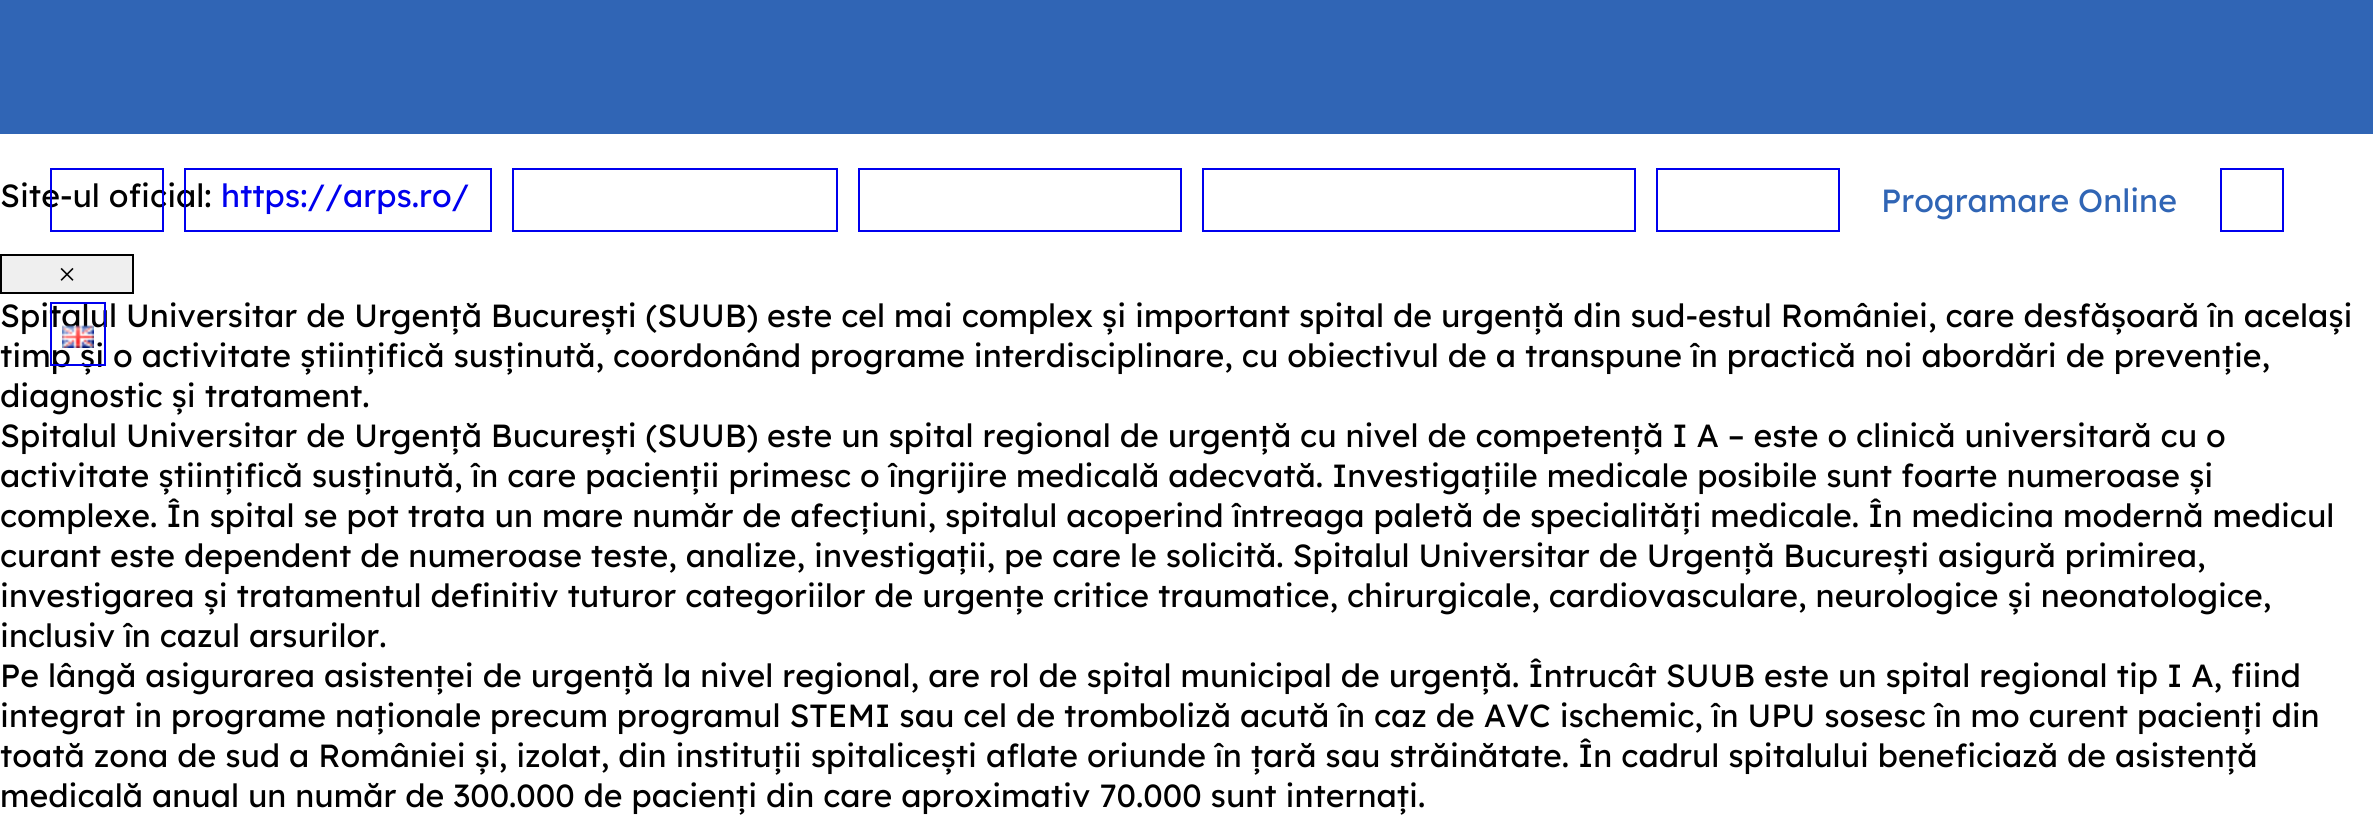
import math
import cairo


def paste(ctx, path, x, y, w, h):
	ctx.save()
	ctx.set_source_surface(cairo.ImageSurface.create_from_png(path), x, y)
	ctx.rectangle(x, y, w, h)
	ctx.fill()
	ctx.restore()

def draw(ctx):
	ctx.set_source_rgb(1, 1, 1)
	ctx.paint()
	ctx.select_font_face('Lexend')
	ctx.set_font_size(32)
	ctx.set_source_rgb(0, 0, 0)
	ctx.move_to(0, 207)
	ctx.show_text('Site-ul oficial:')
	ctx.set_source_rgb(0, 0, 0.933)
	ctx.move_to(221, 207)
	ctx.show_text('https://arps.ro/')
	ctx.set_source_rgb(0.937, 0.937, 0.937)
	ctx.rectangle(1, 255, 132, 38)
	ctx.fill_preserve()
	ctx.set_source_rgb(0, 0, 0)
	ctx.stroke()
	ctx.select_font_face('Liberation Serif')
	ctx.move_to(58, 285)
	ctx.show_text('×')
	ctx.set_source_rgb(0.188, 0.396, 0.71)
	ctx.rectangle(0, 0, 2373, 134)
	ctx.fill()
	ctx.rectangle(51, 169, 112, 62)
	ctx.set_source_rgb(0, 0, 0.933)
	ctx.stroke()
	ctx.rectangle(185, 169, 306, 62)
	ctx.stroke()
	ctx.rectangle(513, 169, 324, 62)
	ctx.stroke()
	ctx.rectangle(859, 169, 322, 62)
	ctx.stroke()
	ctx.rectangle(1203, 169, 432, 62)
	ctx.stroke()
	ctx.rectangle(1657, 169, 182, 62)
	ctx.stroke()
	ctx.select_font_face('Lexend')
	ctx.set_source_rgb(0.188, 0.396, 0.71)
	ctx.move_to(1881, 212)
	ctx.show_text('Programare Online')
	ctx.rectangle(2221, 169, 62, 62)
	ctx.set_source_rgb(0, 0, 0.933)
	ctx.stroke()
	ctx.set_source_rgb(0, 0, 0)
	ctx.move_to(0, 327)
	ctx.show_text('Spitalul Universitar de Urgență București (SUUB) este cel mai complex și important spital de urgență din sud-estul României, care desfășoară în același')
	ctx.move_to(0, 367)
	ctx.show_text('timp și o activitate științifică susținută, coordonând programe interdisciplinare, cu obiectivul de a transpune în practică noi abordări de prevenție,')
	ctx.rectangle(51, 303, 54, 62)
	ctx.set_source_rgb(0, 0, 0.933)
	ctx.stroke()
	paste(ctx, 'media/1.png', 62, 325, 32, 23)
	ctx.set_source_rgb(0, 0, 0)
	for x, y, s in [
		(0, 407, 'diagnostic și tratament.'),
		(0, 447, 'Spitalul Universitar de Urgență București (SUUB) este un spital regional de urgență cu nivel de competență I A – este o clinică universitară cu o'),
		(0, 487, 'activitate științifică susținută, în care pacienții primesc o îngrijire medicală adecvată. Investigațiile medicale posibile sunt foarte numeroase și'),
		(0, 527, 'complexe. În spital se pot trata un mare număr de afecțiuni, spitalul acoperind întreaga paletă de specialități medicale. În medicina modernă medicul'),
		(0, 567, 'curant este dependent de numeroase teste, analize, investigații, pe care le solicită. Spitalul Universitar de Urgență București asigură primirea,'),
		(0, 607, 'investigarea și tratamentul definitiv tuturor categoriilor de urgențe critice traumatice, chirurgicale, cardiovasculare, neurologice și neonatologice,'),
		(0, 647, 'inclusiv în cazul arsurilor.'),
		(0, 687, 'Pe lângă asigurarea asistenței de urgență la nivel regional, are rol de spital municipal de urgență. Întrucât SUUB este un spital regional tip I A, fiind'),
		(0, 727, 'integrat in programe naționale precum programul STEMI sau cel de tromboliză acută în caz de AVC ischemic, în UPU sosesc în mo curent pacienți din'),
		(0, 767, 'toată zona de sud a României și, izolat, din instituții spitalicești aflate oriunde în țară sau străinătate. În cadrul spitalului beneficiază de asistență'),
		(0, 807, 'medicală anual un număr de 300.000 de pacienți din care aproximativ 70.000 sunt internați.'),
	]:
		ctx.move_to(x, y)
		ctx.show_text(s)


surface = cairo.ImageSurface(cairo.FORMAT_RGB24, 2373, 840)
ctx = cairo.Context(surface)
options = cairo.FontOptions()
options.set_hint_metrics(cairo.HINT_METRICS_OFF)
options.set_hint_style(cairo.HINT_STYLE_NONE)
ctx.set_font_options(options)
ctx.set_miter_limit(4)
draw(ctx)
surface.write_to_png('image.png')
